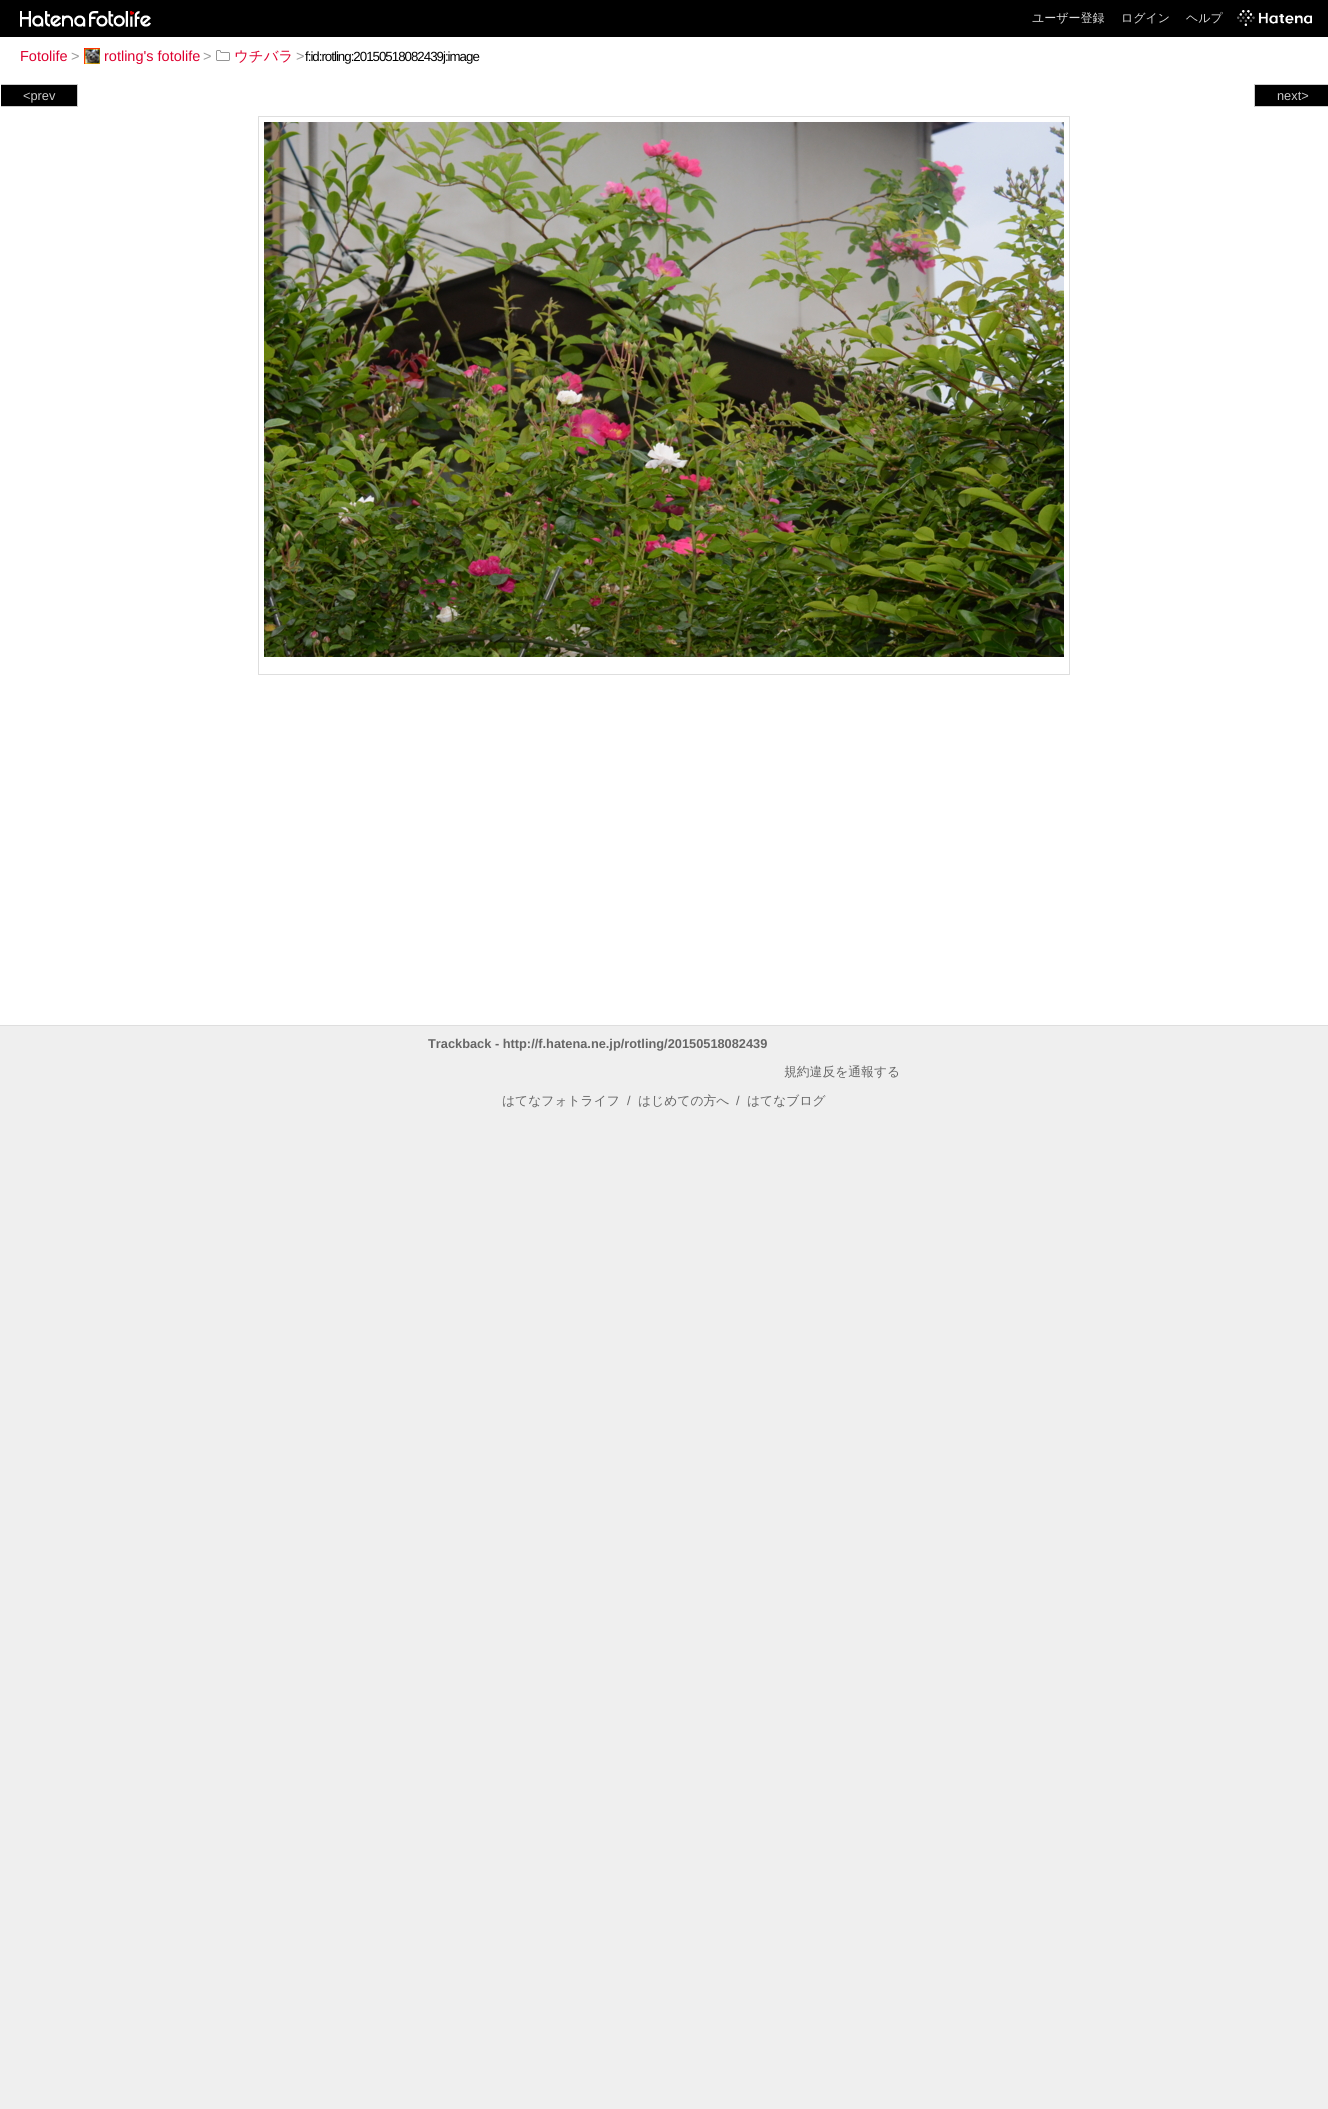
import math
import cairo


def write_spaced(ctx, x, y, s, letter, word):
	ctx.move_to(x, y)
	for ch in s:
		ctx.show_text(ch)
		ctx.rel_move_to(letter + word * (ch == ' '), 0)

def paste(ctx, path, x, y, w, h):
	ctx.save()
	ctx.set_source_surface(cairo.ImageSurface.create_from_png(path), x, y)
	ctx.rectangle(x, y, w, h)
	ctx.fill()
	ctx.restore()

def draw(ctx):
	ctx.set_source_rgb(0.937, 0.937, 0.937)
	ctx.paint()
	ctx.set_source_rgb(0, 0, 0)
	ctx.rectangle(0, 0, 1328, 37)
	ctx.fill()
	paste(ctx, 'media/1.png', 20, 11, 66, 16)
	paste(ctx, 'media/2.png', 89, 11, 62, 16)
	ctx.select_font_face('WenQuanYi Zen Hei Medium')
	ctx.set_font_size(12)
	ctx.set_source_rgb(0.867, 0.867, 0.867)
	for x, y, s in [
		(1032, 22, 'ユーザー登録'),
		(1121, 22, 'ログイン'),
		(1186, 22, 'ヘルプ'),
	]:
		ctx.move_to(x, y)
		ctx.show_text(s)
	paste(ctx, 'media/3.png', 1237, 10, 75, 16)
	ctx.set_source_rgb(1, 1, 1)
	ctx.rectangle(0, 37, 1328, 988)
	ctx.fill()
	ctx.select_font_face('Liberation Sans')
	ctx.set_font_size(14.5)
	ctx.set_source_rgb(0.871, 0, 0.184)
	ctx.move_to(20, 61)
	ctx.show_text('Fotolife')
	ctx.set_source_rgb(0.6, 0.6, 0.6)
	ctx.move_to(71, 61)
	ctx.show_text('>')
	paste(ctx, 'media/4.png', 84, 48, 16, 16)
	ctx.set_source_rgb(0.871, 0, 0.184)
	ctx.move_to(104, 61)
	ctx.show_text('rotling\'s fotolife')
	ctx.set_source_rgb(0.6, 0.6, 0.6)
	ctx.move_to(203, 61)
	ctx.show_text('>')
	paste(ctx, 'media/5.png', 216, 50, 14, 11)
	ctx.select_font_face('WenQuanYi Zen Hei Medium')
	ctx.set_source_rgb(0.871, 0, 0.184)
	ctx.move_to(234, 61)
	ctx.show_text('ウチバラ')
	ctx.select_font_face('Liberation Sans')
	ctx.set_source_rgb(0.6, 0.6, 0.6)
	ctx.move_to(296, 61)
	ctx.show_text('>')
	ctx.set_font_size(13.3)
	ctx.set_source_rgb(0, 0, 0)
	write_spaced(ctx, 305, 61, 'f:id:rotling:20150518082439j:image', -1, 0)
	ctx.set_source_rgb(0.871, 0.871, 0.871)
	ctx.rectangle(0, 1025, 1328, 1)
	ctx.fill()
	ctx.set_source_rgb(0, 0, 0)
	ctx.rectangle(1, 85, 76, 21)
	ctx.fill()
	ctx.set_source_rgb(0.8, 0.8, 0.8)
	ctx.rectangle(1, 84, 77, 1)
	ctx.rectangle(77, 84, 1, 23)
	ctx.rectangle(1, 106, 77, 1)
	ctx.fill()
	ctx.set_font_size(12.8)
	ctx.move_to(23, 100)
	ctx.show_text('<prev')
	ctx.set_source_rgb(0, 0, 0)
	ctx.rectangle(1255, 85, 73, 21)
	ctx.fill()
	ctx.set_source_rgb(0.8, 0.8, 0.8)
	ctx.rectangle(1254, 84, 74, 1)
	ctx.rectangle(1254, 106, 74, 1)
	ctx.rectangle(1254, 84, 1, 23)
	ctx.fill()
	ctx.move_to(1277, 100)
	ctx.show_text('next>')
	ctx.rectangle(258.5, 116.5, 811, 558)
	ctx.set_source_rgb(0.871, 0.871, 0.871)
	ctx.set_line_width(1)
	ctx.stroke()
	paste(ctx, 'media/6.png', 264, 122, 800, 535)
	ctx.select_font_face('Liberation Sans', cairo.FONT_SLANT_NORMAL, cairo.FONT_WEIGHT_BOLD)
	ctx.set_source_rgb(0.4, 0.4, 0.4)
	ctx.move_to(428, 1048)
	ctx.show_text('Trackback - http://f.hatena.ne.jp/rotling/20150518082439')
	ctx.select_font_face('WenQuanYi Zen Hei Medium')
	ctx.move_to(784, 1076)
	ctx.show_text('規約違反を通報する')
	ctx.move_to(502, 1105)
	ctx.show_text('はてなフォトライフ')
	ctx.select_font_face('Liberation Sans')
	ctx.move_to(627, 1105)
	ctx.show_text('/')
	ctx.select_font_face('WenQuanYi Zen Hei Medium')
	ctx.move_to(638, 1105)
	ctx.show_text('はじめての方へ')
	ctx.select_font_face('Liberation Sans')
	ctx.move_to(736, 1105)
	ctx.show_text('/')
	ctx.select_font_face('WenQuanYi Zen Hei Medium')
	ctx.move_to(747, 1105)
	ctx.show_text('はてなブログ')


surface = cairo.ImageSurface(cairo.FORMAT_RGB24, 1328, 2109)
ctx = cairo.Context(surface)
options = cairo.FontOptions()
options.set_hint_metrics(cairo.HINT_METRICS_OFF)
options.set_hint_style(cairo.HINT_STYLE_NONE)
ctx.set_font_options(options)
ctx.set_miter_limit(4)
draw(ctx)
surface.write_to_png('image.png')
